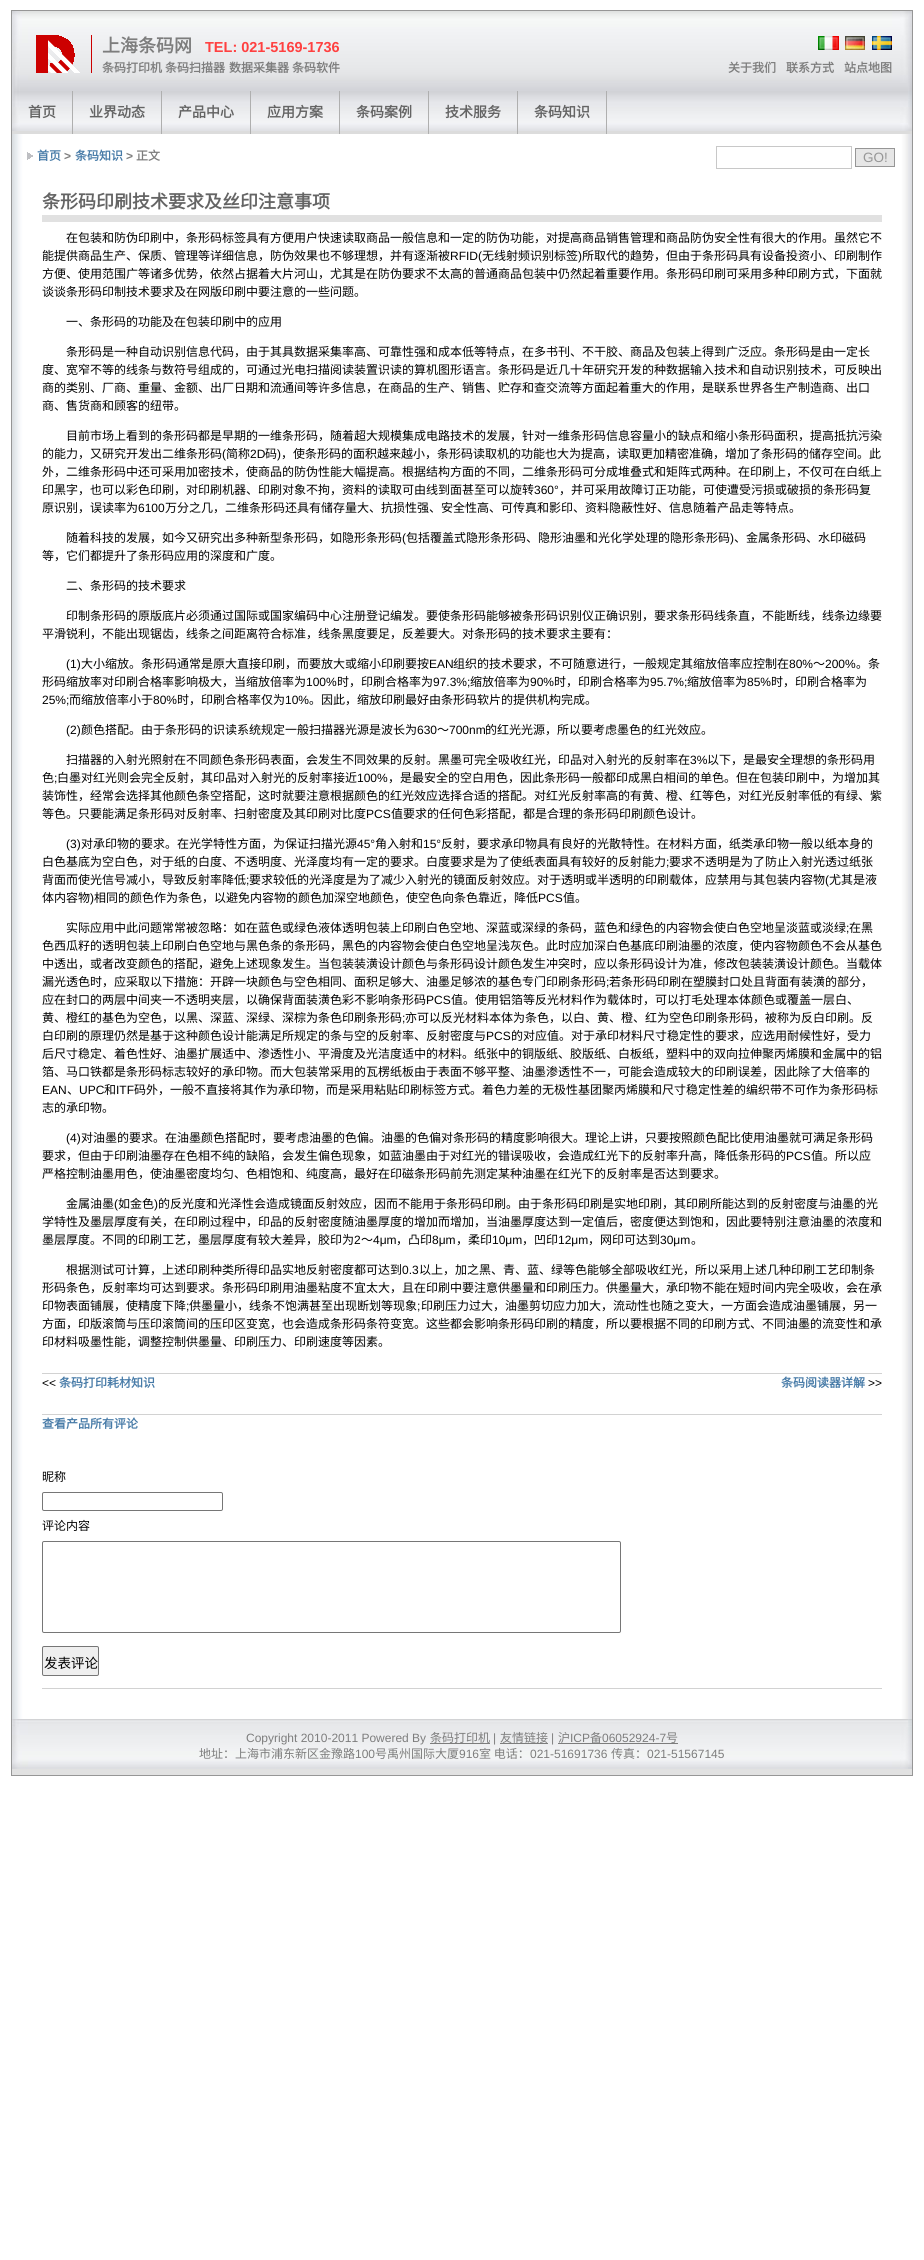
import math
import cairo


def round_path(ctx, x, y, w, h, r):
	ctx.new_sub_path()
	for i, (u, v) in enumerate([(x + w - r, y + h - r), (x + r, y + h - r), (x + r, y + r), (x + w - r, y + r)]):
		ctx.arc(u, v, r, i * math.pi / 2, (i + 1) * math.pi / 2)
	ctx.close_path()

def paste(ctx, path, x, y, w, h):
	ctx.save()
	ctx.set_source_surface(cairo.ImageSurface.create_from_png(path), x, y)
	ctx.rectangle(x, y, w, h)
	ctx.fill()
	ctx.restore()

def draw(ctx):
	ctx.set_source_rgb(1, 1, 1)
	ctx.paint()
	ctx.rectangle(11.5, 10.5, 901, 1765)
	ctx.set_source_rgb(0.588, 0.588, 0.588)
	ctx.set_line_width(1)
	ctx.stroke()
	paste(ctx, 'media/1.png', 12, 11, 900, 80)
	paste(ctx, 'media/2.png', 36, 35, 56, 38)
	ctx.select_font_face('Noto Sans CJK SC', cairo.FONT_SLANT_NORMAL, cairo.FONT_WEIGHT_BOLD)
	ctx.set_font_size(18)
	ctx.set_source_rgb(0.49, 0.49, 0.49)
	ctx.move_to(102, 52)
	ctx.show_text('上海条码网')
	ctx.select_font_face('Liberation Sans', cairo.FONT_SLANT_NORMAL, cairo.FONT_WEIGHT_BOLD)
	ctx.set_font_size(14.5)
	ctx.set_source_rgb(1, 0.251, 0.251)
	ctx.move_to(205, 52)
	ctx.show_text('TEL: 021-5169-1736')
	ctx.select_font_face('Noto Sans CJK SC', cairo.FONT_SLANT_NORMAL, cairo.FONT_WEIGHT_BOLD)
	ctx.set_font_size(12)
	ctx.set_source_rgb(0.49, 0.49, 0.49)
	for x, y, s in [
		(102, 72, '条码打印机'),
		(165, 72, '条码扫描器'),
		(229, 72, '数据采集器'),
		(292, 72, '条码软件'),
	]:
		ctx.move_to(x, y)
		ctx.show_text(s)
	paste(ctx, 'media/3.png', 818, 36, 21, 14)
	paste(ctx, 'media/4.png', 845, 36, 20, 14)
	paste(ctx, 'media/5.png', 872, 36, 20, 14)
	for x, y, s in [
		(728, 72, '关于我们'),
		(786, 72, '联系方式'),
		(844, 72, '站点地图'),
	]:
		ctx.move_to(x, y)
		ctx.show_text(s)
	ctx.set_source_rgb(0.863, 0.863, 0.863)
	ctx.rectangle(12, 131, 900, 3)
	ctx.fill()
	paste(ctx, 'media/6.png', 12, 91, 900, 40)
	ctx.set_source_rgb(0.686, 0.686, 0.686)
	ctx.rectangle(72, 91, 1, 43)
	ctx.fill()
	ctx.set_font_size(14)
	ctx.set_source_rgb(0.392, 0.392, 0.392)
	ctx.move_to(28, 117)
	ctx.show_text('首页')
	ctx.set_source_rgb(0.686, 0.686, 0.686)
	ctx.rectangle(161, 91, 1, 43)
	ctx.fill()
	ctx.set_source_rgb(0.392, 0.392, 0.392)
	ctx.move_to(89, 117)
	ctx.show_text('业界动态')
	ctx.set_source_rgb(0.686, 0.686, 0.686)
	ctx.rectangle(250, 91, 1, 43)
	ctx.fill()
	ctx.set_source_rgb(0.392, 0.392, 0.392)
	ctx.move_to(178, 117)
	ctx.show_text('产品中心')
	ctx.set_source_rgb(0.686, 0.686, 0.686)
	ctx.rectangle(339, 91, 1, 43)
	ctx.fill()
	ctx.set_source_rgb(0.392, 0.392, 0.392)
	ctx.move_to(267, 117)
	ctx.show_text('应用方案')
	ctx.set_source_rgb(0.686, 0.686, 0.686)
	ctx.rectangle(428, 91, 1, 43)
	ctx.fill()
	ctx.set_source_rgb(0.392, 0.392, 0.392)
	ctx.move_to(356, 117)
	ctx.show_text('条码案例')
	ctx.set_source_rgb(0.686, 0.686, 0.686)
	ctx.rectangle(517, 91, 1, 43)
	ctx.fill()
	ctx.set_source_rgb(0.392, 0.392, 0.392)
	ctx.move_to(445, 117)
	ctx.show_text('技术服务')
	ctx.set_source_rgb(0.686, 0.686, 0.686)
	ctx.rectangle(606, 91, 1, 43)
	ctx.fill()
	ctx.set_source_rgb(0.392, 0.392, 0.392)
	ctx.move_to(534, 117)
	ctx.show_text('条码知识')
	paste(ctx, 'media/7.png', 12, 134, 900, 53)
	paste(ctx, 'media/8.png', 27, 152, 6, 8)
	ctx.set_font_size(12)
	ctx.set_source_rgb(0.275, 0.478, 0.655)
	ctx.move_to(37, 160)
	ctx.show_text('首页')
	ctx.select_font_face('Liberation Sans', cairo.FONT_SLANT_NORMAL, cairo.FONT_WEIGHT_BOLD)
	ctx.set_source_rgb(0.49, 0.49, 0.49)
	ctx.move_to(64, 160)
	ctx.show_text('>')
	ctx.select_font_face('Noto Sans CJK SC', cairo.FONT_SLANT_NORMAL, cairo.FONT_WEIGHT_BOLD)
	ctx.set_source_rgb(0.275, 0.478, 0.655)
	ctx.move_to(75, 160)
	ctx.show_text('条码知识')
	ctx.select_font_face('Liberation Sans', cairo.FONT_SLANT_NORMAL, cairo.FONT_WEIGHT_BOLD)
	ctx.set_source_rgb(0.49, 0.49, 0.49)
	ctx.move_to(126, 160)
	ctx.show_text('>')
	ctx.select_font_face('Noto Sans CJK SC', cairo.FONT_SLANT_NORMAL, cairo.FONT_WEIGHT_BOLD)
	ctx.move_to(136, 160)
	ctx.show_text('正文')
	ctx.rectangle(716.5, 146.5, 135, 22)
	ctx.set_source_rgb(0.784, 0.784, 0.784)
	ctx.stroke()
	ctx.set_source_rgb(0.902, 0.902, 0.902)
	ctx.rectangle(855.5, 148.5, 39, 18)
	ctx.fill_preserve()
	ctx.set_source_rgb(0.588, 0.588, 0.588)
	ctx.stroke()
	ctx.select_font_face('Liberation Sans')
	ctx.set_font_size(13.5)
	ctx.move_to(863, 162)
	ctx.show_text('GO!')
	paste(ctx, 'media/9.png', 12, 187, 900, 1532)
	ctx.set_source_rgb(0.882, 0.882, 0.882)
	ctx.rectangle(42, 215, 840, 7)
	ctx.fill()
	ctx.select_font_face('Noto Sans CJK SC', cairo.FONT_SLANT_NORMAL, cairo.FONT_WEIGHT_BOLD)
	ctx.set_font_size(18)
	ctx.set_source_rgb(0.392, 0.392, 0.392)
	ctx.move_to(42, 208)
	ctx.show_text('条形码印刷技术要求及丝印注意事项')
	ctx.select_font_face('Noto Sans CJK SC')
	ctx.set_font_size(12)
	ctx.set_source_rgb(0, 0, 0)
	ctx.move_to(66, 242)
	ctx.show_text('在包装和防伪印刷中，条形码标签具有方便用户快速读取商品一般信息和一定的防伪功能，对提高商品销售管理和商品防伪安全性有很大的作用。虽然它不')
	ctx.move_to(42, 260)
	ctx.show_text('能提供商品生产、保质、管理等详细信息，防伪效果也不够理想，并有逐渐被')
	ctx.select_font_face('Liberation Sans')
	ctx.move_to(450, 260)
	ctx.show_text('RFID(')
	ctx.select_font_face('Noto Sans CJK SC')
	ctx.move_to(482, 260)
	ctx.show_text('无线射频识别标签')
	ctx.select_font_face('Liberation Sans')
	ctx.move_to(578, 260)
	ctx.show_text(')')
	ctx.select_font_face('Noto Sans CJK SC')
	for x, y, s in [
		(582, 260, '所取代的趋势，但由于条形码具有设备投资小、印刷制作'),
		(42, 278, '方便、使用范围广等诸多优势，依然占据着大片河山，尤其是在防伪要求不太高的普通商品包装中仍然起着重要作用。条形码印刷可采用多种印刷方式，下面就'),
		(42, 296, '谈谈条形码印制技术要求及在网版印刷中要注意的一些问题。'),
		(66, 326, '一、条形码的功能及在包装印刷中的应用'),
		(66, 356, '条形码是一种自动识别信息代码，由于其具数据采集率高、可靠性强和成本低等特点，在多书刊、不干胶、商品及包装上得到广泛应。条形码是由一定长'),
		(42, 374, '度、宽窄不等的线条与数符号组成的，可通过光电扫描阅读装置识读的算机图形语言。条形码是近几十年研究开发的种数据输入技术和自动识别技术，可反映出'),
		(42, 392, '商的类别、厂商、重量、金额、出厂日期和流通间等许多信息，在商品的生产、销售、贮存和查交流等方面起着重大的作用，是联系世界各生产制造商、出口'),
		(42, 410, '商、售货商和顾客的纽带。'),
		(66, 440, '目前市场上看到的条形码都是早期的一维条形码，随着超大规模集成电路技术的发展，针对一维条形码信息容量小的缺点和缩小条形码面积，提高抵抗污染'),
		(42, 458, '的能力，又研究开发出二维条形码'),
	]:
		ctx.move_to(x, y)
		ctx.show_text(s)
	ctx.select_font_face('Liberation Sans')
	ctx.move_to(222, 458)
	ctx.show_text('(')
	ctx.select_font_face('Noto Sans CJK SC')
	ctx.move_to(226, 458)
	ctx.show_text('简称')
	ctx.select_font_face('Liberation Sans')
	ctx.move_to(250, 458)
	ctx.show_text('2D')
	ctx.select_font_face('Noto Sans CJK SC')
	ctx.move_to(265, 458)
	ctx.show_text('码')
	ctx.select_font_face('Liberation Sans')
	ctx.move_to(277, 458)
	ctx.show_text(')')
	ctx.select_font_face('Noto Sans CJK SC')
	for x, y, s in [
		(281, 458, '，使条形码的面积越来越小，条形码读取机的功能也大为提高，读取更加精密准确，增加了条形码的储存空间。此'),
		(42, 476, '外，二维条形码中还可采用加密技术，使商品的防伪性能大幅提高。根据结构方面的不同，二维条形码可分成堆叠式和矩阵式两种。在印刷上，不仅可在白纸上'),
		(42, 494, '印黑字，也可以彩色印刷，对印刷机器、印刷对象不拘，资料的读取可由线到面甚至可以旋转'),
	]:
		ctx.move_to(x, y)
		ctx.show_text(s)
	ctx.select_font_face('Liberation Sans')
	ctx.move_to(534, 494)
	ctx.show_text('360°')
	ctx.select_font_face('Noto Sans CJK SC')
	ctx.move_to(559, 494)
	ctx.show_text('，并可采用故障订正功能，可使遭受污损或破损的条形码复')
	ctx.move_to(42, 512)
	ctx.show_text('原识别，误读率为')
	ctx.select_font_face('Liberation Sans')
	ctx.move_to(138, 512)
	ctx.show_text('6100')
	ctx.select_font_face('Noto Sans CJK SC')
	ctx.move_to(165, 512)
	ctx.show_text('万分之几，二维条形码还具有储存量大、抗损性强、安全性高、可传真和影印、资料隐蔽性好、信息随着产品走等特点。')
	ctx.move_to(66, 542)
	ctx.show_text('随着科技的发展，如今又研究出多种新型条形码，如隐形条形码')
	ctx.select_font_face('Liberation Sans')
	ctx.move_to(402, 542)
	ctx.show_text('(')
	ctx.select_font_face('Noto Sans CJK SC')
	ctx.move_to(406, 542)
	ctx.show_text('包括覆盖式隐形条形码、隐形油墨和光化学处理的隐形条形码')
	ctx.select_font_face('Liberation Sans')
	ctx.move_to(730, 542)
	ctx.show_text(')')
	ctx.select_font_face('Noto Sans CJK SC')
	for x, y, s in [
		(734, 542, '、金属条形码、水印磁码'),
		(42, 560, '等，它们都提升了条形码应用的深度和广度。'),
		(66, 590, '二、条形码的技术要求'),
		(66, 620, '印制条形码的原版底片必须通过国际或国家编码中心注册登记编发。要使条形码能够被条形码识别仪正确识别，要求条形码线条直，不能断线，线条边缘要'),
		(42, 638, '平滑锐利，不能出现锯齿，线条之间距离符合标准，线条黑度要足，反差要大。对条形码的技术要求主要有：'),
	]:
		ctx.move_to(x, y)
		ctx.show_text(s)
	ctx.select_font_face('Liberation Sans')
	ctx.move_to(66, 668)
	ctx.show_text('(1)')
	ctx.select_font_face('Noto Sans CJK SC')
	ctx.move_to(81, 668)
	ctx.show_text('大小缩放。条形码通常是原大直接印刷，而要放大或缩小印刷要按')
	ctx.select_font_face('Liberation Sans')
	ctx.move_to(429, 668)
	ctx.show_text('EAN')
	ctx.select_font_face('Noto Sans CJK SC')
	ctx.move_to(453, 668)
	ctx.show_text('组织的技术要求，不可随意进行，一般规定其缩放倍率应控制在')
	ctx.select_font_face('Liberation Sans')
	ctx.move_to(789, 668)
	ctx.show_text('80%')
	ctx.select_font_face('Noto Sans CJK SC')
	ctx.move_to(813, 668)
	ctx.show_text('～')
	ctx.select_font_face('Liberation Sans')
	ctx.move_to(825, 668)
	ctx.show_text('200%')
	ctx.select_font_face('Noto Sans CJK SC')
	ctx.move_to(856, 668)
	ctx.show_text('。条')
	ctx.move_to(42, 686)
	ctx.show_text('形码缩放率对印刷合格率影响极大，当缩放倍率为')
	ctx.select_font_face('Liberation Sans')
	ctx.move_to(306, 686)
	ctx.show_text('100%')
	ctx.select_font_face('Noto Sans CJK SC')
	ctx.move_to(337, 686)
	ctx.show_text('时，印刷合格率为')
	ctx.select_font_face('Liberation Sans')
	ctx.move_to(433, 686)
	ctx.show_text('97.3%;')
	ctx.select_font_face('Noto Sans CJK SC')
	ctx.move_to(470, 686)
	ctx.show_text('缩放倍率为')
	ctx.select_font_face('Liberation Sans')
	ctx.move_to(530, 686)
	ctx.show_text('90%')
	ctx.select_font_face('Noto Sans CJK SC')
	ctx.move_to(554, 686)
	ctx.show_text('时，印刷合格率为')
	ctx.select_font_face('Liberation Sans')
	ctx.move_to(650, 686)
	ctx.show_text('95.7%;')
	ctx.select_font_face('Noto Sans CJK SC')
	ctx.move_to(687, 686)
	ctx.show_text('缩放倍率为')
	ctx.select_font_face('Liberation Sans')
	ctx.move_to(747, 686)
	ctx.show_text('85%')
	ctx.select_font_face('Noto Sans CJK SC')
	ctx.move_to(771, 686)
	ctx.show_text('时，印刷合格率为')
	ctx.select_font_face('Liberation Sans')
	ctx.move_to(42, 704)
	ctx.show_text('25%;')
	ctx.select_font_face('Noto Sans CJK SC')
	ctx.move_to(69, 704)
	ctx.show_text('而缩放倍率小于')
	ctx.select_font_face('Liberation Sans')
	ctx.move_to(153, 704)
	ctx.show_text('80%')
	ctx.select_font_face('Noto Sans CJK SC')
	ctx.move_to(177, 704)
	ctx.show_text('时，印刷合格率仅为')
	ctx.select_font_face('Liberation Sans')
	ctx.move_to(285, 704)
	ctx.show_text('10%')
	ctx.select_font_face('Noto Sans CJK SC')
	ctx.move_to(309, 704)
	ctx.show_text('。因此，缩放印刷最好由条形码软片的提供机构完成。')
	ctx.select_font_face('Liberation Sans')
	ctx.move_to(66, 734)
	ctx.show_text('(2)')
	ctx.select_font_face('Noto Sans CJK SC')
	ctx.move_to(81, 734)
	ctx.show_text('颜色搭配。由于条形码的识读系统规定一般扫描器光源是波长为')
	ctx.select_font_face('Liberation Sans')
	ctx.move_to(417, 734)
	ctx.show_text('630')
	ctx.select_font_face('Noto Sans CJK SC')
	ctx.move_to(437, 734)
	ctx.show_text('～')
	ctx.select_font_face('Liberation Sans')
	ctx.move_to(449, 734)
	ctx.show_text('700nm')
	ctx.select_font_face('Noto Sans CJK SC')
	ctx.move_to(485, 734)
	ctx.show_text('的红光光源，所以要考虑墨色的红光效应。')
	ctx.move_to(66, 764)
	ctx.show_text('扫描器的入射光照射在不同颜色条形码表面，会发生不同效果的反射。黑墨可完全吸收红光，印品对入射光的反射率在')
	ctx.select_font_face('Liberation Sans')
	ctx.move_to(690, 764)
	ctx.show_text('3%')
	ctx.select_font_face('Noto Sans CJK SC')
	ctx.move_to(707, 764)
	ctx.show_text('以下，是最安全理想的条形码用')
	ctx.move_to(42, 782)
	ctx.show_text('色')
	ctx.select_font_face('Liberation Sans')
	ctx.move_to(54, 782)
	ctx.show_text(';')
	ctx.select_font_face('Noto Sans CJK SC')
	ctx.move_to(57, 782)
	ctx.show_text('白墨对红光则会完全反射，其印品对入射光的反射率接近')
	ctx.select_font_face('Liberation Sans')
	ctx.move_to(357, 782)
	ctx.show_text('100%')
	ctx.select_font_face('Noto Sans CJK SC')
	for x, y, s in [
		(388, 782, '，是最安全的空白用色，因此条形码一般都印成黑白相间的单色。但在包装印刷中，为增加其'),
		(42, 800, '装饰性，经常会选择其他颜色条空搭配，这时就要注意根据颜色的红光效应选择合适的搭配。对红光反射率高的有黄、橙、红等色，对红光反射率低的有绿、紫'),
		(42, 818, '等色。只要能满足条形码对反射率、扫射密度及其印刷对比度'),
	]:
		ctx.move_to(x, y)
		ctx.show_text(s)
	ctx.select_font_face('Liberation Sans')
	ctx.move_to(366, 818)
	ctx.show_text('PCS')
	ctx.select_font_face('Noto Sans CJK SC')
	ctx.move_to(391, 818)
	ctx.show_text('值要求的任何色彩搭配，都是合理的条形码印刷颜色设计。')
	ctx.select_font_face('Liberation Sans')
	ctx.move_to(66, 848)
	ctx.show_text('(3)')
	ctx.select_font_face('Noto Sans CJK SC')
	ctx.move_to(81, 848)
	ctx.show_text('对承印物的要求。在光学特性方面，为保证扫描光源')
	ctx.select_font_face('Liberation Sans')
	ctx.move_to(357, 848)
	ctx.show_text('45°')
	ctx.select_font_face('Noto Sans CJK SC')
	ctx.move_to(375, 848)
	ctx.show_text('角入射和')
	ctx.select_font_face('Liberation Sans')
	ctx.move_to(423, 848)
	ctx.show_text('15°')
	ctx.select_font_face('Noto Sans CJK SC')
	ctx.move_to(441, 848)
	ctx.show_text('反射，要求承印物具有良好的光散特性。在材料方面，纸类承印物一般以纸本身的')
	ctx.move_to(42, 866)
	ctx.show_text('白色基底为空白色，对于纸的白度、不透明度、光泽度均有一定的要求。白度要求是为了使纸表面具有较好的反射能力')
	ctx.select_font_face('Liberation Sans')
	ctx.move_to(666, 866)
	ctx.show_text(';')
	ctx.select_font_face('Noto Sans CJK SC')
	ctx.move_to(669, 866)
	ctx.show_text('要求不透明是为了防止入射光透过纸张')
	ctx.move_to(42, 884)
	ctx.show_text('背面而使光信号减小，导致反射率降低')
	ctx.select_font_face('Liberation Sans')
	ctx.move_to(246, 884)
	ctx.show_text(';')
	ctx.select_font_face('Noto Sans CJK SC')
	ctx.move_to(249, 884)
	ctx.show_text('要求较低的光泽度是为了减少入射光的镜面反射效应。对于透明或半透明的印刷载体，应禁用与其包装内容物')
	ctx.select_font_face('Liberation Sans')
	ctx.move_to(825, 884)
	ctx.show_text('(')
	ctx.select_font_face('Noto Sans CJK SC')
	ctx.move_to(829, 884)
	ctx.show_text('尤其是液')
	ctx.move_to(42, 902)
	ctx.show_text('体内容物')
	ctx.select_font_face('Liberation Sans')
	ctx.move_to(90, 902)
	ctx.show_text(')')
	ctx.select_font_face('Noto Sans CJK SC')
	ctx.move_to(94, 902)
	ctx.show_text('相同的颜色作为条色，以避免内容物的颜色加深空地颜色，使空色向条色靠近，降低')
	ctx.select_font_face('Liberation Sans')
	ctx.move_to(538, 902)
	ctx.show_text('PCS')
	ctx.select_font_face('Noto Sans CJK SC')
	ctx.move_to(563, 902)
	ctx.show_text('值。')
	ctx.move_to(66, 932)
	ctx.show_text('实际应用中此问题常常被忽略：如在蓝色或绿色液体透明包装上印刷白色空地、深蓝或深绿的条码，蓝色和绿色的内容物会使白色空地呈淡蓝或淡绿')
	ctx.select_font_face('Liberation Sans')
	ctx.move_to(846, 932)
	ctx.show_text(';')
	ctx.select_font_face('Noto Sans CJK SC')
	for x, y, s in [
		(849, 932, '在黑'),
		(42, 950, '色西瓜籽的透明包装上印刷白色空地与黑色条的条形码，黑色的内容物会使白色空地呈浅灰色。此时应加深白色基底印刷油墨的浓度，使内容物颜色不会从基色'),
		(42, 968, '中透出，或者改变颜色的搭配，避免上述现象发生。当包装装潢设计颜色与条形码设计颜色发生冲突时，应以条形码设计为准，修改包装装潢设计颜色。当载体'),
		(42, 986, '漏光透色时，应采取以下措施：开辟一块颜色与空色相同、面积足够大、油墨足够浓的基色专门印刷条形码'),
	]:
		ctx.move_to(x, y)
		ctx.show_text(s)
	ctx.select_font_face('Liberation Sans')
	ctx.move_to(606, 986)
	ctx.show_text(';')
	ctx.select_font_face('Noto Sans CJK SC')
	ctx.move_to(609, 986)
	ctx.show_text('若条形码印刷在塑膜封口处且背面有装潢的部分，')
	ctx.move_to(42, 1004)
	ctx.show_text('应在封口的两层中间夹一不透明夹层，以确保背面装潢色彩不影响条形码')
	ctx.select_font_face('Liberation Sans')
	ctx.move_to(426, 1004)
	ctx.show_text('PCS')
	ctx.select_font_face('Noto Sans CJK SC')
	ctx.move_to(451, 1004)
	ctx.show_text('值。使用铝箔等反光材料作为载体时，可以打毛处理本体颜色或覆盖一层白、')
	ctx.move_to(42, 1022)
	ctx.show_text('黄、橙红的基色为空色，以黑、深蓝、深绿、深棕为条色印刷条形码')
	ctx.select_font_face('Liberation Sans')
	ctx.move_to(402, 1022)
	ctx.show_text(';')
	ctx.select_font_face('Noto Sans CJK SC')
	ctx.move_to(405, 1022)
	ctx.show_text('亦可以反光材料本体为条色，以白、黄、橙、红为空色印刷条形码，被称为反白印刷。反')
	ctx.move_to(42, 1040)
	ctx.show_text('白印刷的原理仍然是基于这种颜色设计能满足所规定的条与空的反射率、反射密度与')
	ctx.select_font_face('Liberation Sans')
	ctx.move_to(486, 1040)
	ctx.show_text('PCS')
	ctx.select_font_face('Noto Sans CJK SC')
	for x, y, s in [
		(511, 1040, '的对应值。对于承印材料尺寸稳定性的要求，应选用耐候性好，受力'),
		(42, 1058, '后尺寸稳定、着色性好、油墨扩展适中、渗透性小、平滑度及光洁度适中的材料。纸张中的铜版纸、胶版纸、白板纸，塑料中的双向拉伸聚丙烯膜和金属中的铝'),
		(42, 1076, '箔、马口铁都是条形码标志较好的承印物。而大包装常采用的瓦楞纸板由于表面不够平整、油墨渗透性不一，可能会造成较大的印刷误差，因此除了大倍率的'),
	]:
		ctx.move_to(x, y)
		ctx.show_text(s)
	ctx.select_font_face('Liberation Sans')
	ctx.move_to(42, 1094)
	ctx.show_text('EAN')
	ctx.select_font_face('Noto Sans CJK SC')
	ctx.move_to(67, 1094)
	ctx.show_text('、')
	ctx.select_font_face('Liberation Sans')
	ctx.move_to(79, 1094)
	ctx.show_text('UPC')
	ctx.select_font_face('Noto Sans CJK SC')
	ctx.move_to(104, 1094)
	ctx.show_text('和')
	ctx.select_font_face('Liberation Sans')
	ctx.move_to(116, 1094)
	ctx.show_text('ITF')
	ctx.select_font_face('Noto Sans CJK SC')
	ctx.move_to(134, 1094)
	ctx.show_text('码外，一般不直接将其作为承印物，而是采用粘贴印刷标签方式。着色力差的无极性基团聚丙烯膜和尺寸稳定性差的编织带不可作为条形码标')
	ctx.move_to(42, 1112)
	ctx.show_text('志的承印物。')
	ctx.select_font_face('Liberation Sans')
	ctx.move_to(66, 1142)
	ctx.show_text('(4)')
	ctx.select_font_face('Noto Sans CJK SC')
	ctx.move_to(81, 1142)
	ctx.show_text('对油墨的要求。在油墨颜色搭配时，要考虑油墨的色偏。油墨的色偏对条形码的精度影响很大。理论上讲，只要按照颜色配比使用油墨就可满足条形码')
	ctx.move_to(42, 1160)
	ctx.show_text('要求，但由于印刷油墨存在色相不纯的缺陷，会发生偏色现象，如蓝油墨由于对红光的错误吸收，会造成红光下的反射率升高，降低条形码的')
	ctx.select_font_face('Liberation Sans')
	ctx.move_to(786, 1160)
	ctx.show_text('PCS')
	ctx.select_font_face('Noto Sans CJK SC')
	for x, y, s in [
		(811, 1160, '值。所以应'),
		(42, 1178, '严格控制油墨用色，使油墨密度均匀、色相饱和、纯度高，最好在印磁条形码前先测定某种油墨在红光下的反射率是否达到要求。'),
		(66, 1208, '金属油墨'),
	]:
		ctx.move_to(x, y)
		ctx.show_text(s)
	ctx.select_font_face('Liberation Sans')
	ctx.move_to(114, 1208)
	ctx.show_text('(')
	ctx.select_font_face('Noto Sans CJK SC')
	ctx.move_to(118, 1208)
	ctx.show_text('如金色')
	ctx.select_font_face('Liberation Sans')
	ctx.move_to(154, 1208)
	ctx.show_text(')')
	ctx.select_font_face('Noto Sans CJK SC')
	for x, y, s in [
		(158, 1208, '的反光度和光泽性会造成镜面反射效应，因而不能用于条形码印刷。由于条形码印刷是实地印刷，其印刷所能达到的反射密度与油墨的光'),
		(42, 1226, '学特性及墨层厚度有关，在印刷过程中，印品的反射密度随油墨厚度的增加而增加，当油墨厚度达到一定值后，密度便达到饱和，因此要特别注意油墨的浓度和'),
		(42, 1244, '墨层厚度。不同的印刷工艺，墨层厚度有较大差异，胶印为'),
	]:
		ctx.move_to(x, y)
		ctx.show_text(s)
	ctx.select_font_face('Liberation Sans')
	ctx.move_to(354, 1244)
	ctx.show_text('2')
	ctx.select_font_face('Noto Sans CJK SC')
	ctx.move_to(361, 1244)
	ctx.show_text('～')
	ctx.select_font_face('Liberation Sans')
	ctx.move_to(373, 1244)
	ctx.show_text('4μm')
	ctx.select_font_face('Noto Sans CJK SC')
	ctx.move_to(396, 1244)
	ctx.show_text('，凸印')
	ctx.select_font_face('Liberation Sans')
	ctx.move_to(432, 1244)
	ctx.show_text('8μm')
	ctx.select_font_face('Noto Sans CJK SC')
	ctx.move_to(456, 1244)
	ctx.show_text('，柔印')
	ctx.select_font_face('Liberation Sans')
	ctx.move_to(492, 1244)
	ctx.show_text('10μm')
	ctx.select_font_face('Noto Sans CJK SC')
	ctx.move_to(522, 1244)
	ctx.show_text('，凹印')
	ctx.select_font_face('Liberation Sans')
	ctx.move_to(558, 1244)
	ctx.show_text('12μm')
	ctx.select_font_face('Noto Sans CJK SC')
	ctx.move_to(588, 1244)
	ctx.show_text('，网印可达到')
	ctx.select_font_face('Liberation Sans')
	ctx.move_to(660, 1244)
	ctx.show_text('30μm')
	ctx.select_font_face('Noto Sans CJK SC')
	ctx.move_to(691, 1244)
	ctx.show_text('。')
	ctx.move_to(66, 1274)
	ctx.show_text('根据测试可计算，上述印刷种类所得印品实地反射密度都可达到')
	ctx.select_font_face('Liberation Sans')
	ctx.move_to(402, 1274)
	ctx.show_text('0.3')
	ctx.select_font_face('Noto Sans CJK SC')
	for x, y, s in [
		(419, 1274, '以上，加之黑、青、蓝、绿等色能够全部吸收红光，所以采用上述几种印刷工艺印制条'),
		(42, 1292, '形码条色，反射率均可达到要求。条形码印刷用油墨粘度不宜太大，且在印刷中要注意供墨量和印刷压力。供墨量大，承印物不能在短时间内完全吸收，会在承'),
		(42, 1310, '印物表面铺展，使精度下降'),
	]:
		ctx.move_to(x, y)
		ctx.show_text(s)
	ctx.select_font_face('Liberation Sans')
	ctx.move_to(186, 1310)
	ctx.show_text(';')
	ctx.select_font_face('Noto Sans CJK SC')
	ctx.move_to(189, 1310)
	ctx.show_text('供墨量小，线条不饱满甚至出现断划等现象')
	ctx.select_font_face('Liberation Sans')
	ctx.move_to(417, 1310)
	ctx.show_text(';')
	ctx.select_font_face('Noto Sans CJK SC')
	for x, y, s in [
		(421, 1310, '印刷压力过大，油墨剪切应力加大，流动性也随之变大，一方面会造成油墨铺展，另一'),
		(42, 1328, '方面，印版滚筒与压印滚筒间的压印区变宽，也会造成条形码条符变宽。这些都会影响条形码印刷的精度，所以要根据不同的印刷方式、不同油墨的流变性和承'),
		(42, 1346, '印材料吸墨性能，调整控制供墨量、印刷压力、印刷速度等因素。'),
	]:
		ctx.move_to(x, y)
		ctx.show_text(s)
	ctx.set_source_rgb(0.824, 0.824, 0.824)
	ctx.rectangle(42, 1373, 840, 1)
	ctx.fill()
	ctx.select_font_face('Liberation Sans')
	ctx.set_source_rgb(0, 0, 0)
	ctx.move_to(42, 1387)
	ctx.show_text('<<')
	ctx.select_font_face('Noto Sans CJK SC', cairo.FONT_SLANT_NORMAL, cairo.FONT_WEIGHT_BOLD)
	ctx.set_source_rgb(0.275, 0.478, 0.655)
	ctx.move_to(59, 1387)
	ctx.show_text('条码打印耗材知识')
	ctx.move_to(781, 1387)
	ctx.show_text('条码阅读器详解')
	ctx.select_font_face('Liberation Sans')
	ctx.set_source_rgb(0, 0, 0)
	ctx.move_to(868, 1387)
	ctx.show_text('>>')
	ctx.set_source_rgb(0.824, 0.824, 0.824)
	ctx.rectangle(42, 1414, 840, 1)
	ctx.fill()
	ctx.select_font_face('Noto Sans CJK SC', cairo.FONT_SLANT_NORMAL, cairo.FONT_WEIGHT_BOLD)
	ctx.set_source_rgb(0.275, 0.478, 0.655)
	ctx.move_to(42, 1428)
	ctx.show_text('查看产品所有评论')
	ctx.select_font_face('Noto Sans CJK SC')
	ctx.set_source_rgb(0, 0, 0)
	ctx.move_to(42, 1481)
	ctx.show_text('昵称')
	round_path(ctx, 42.5, 1492.5, 180, 18, 1.5)
	ctx.set_source_rgb(0.463, 0.463, 0.463)
	ctx.stroke()
	ctx.set_source_rgb(0, 0, 0)
	ctx.move_to(42, 1530)
	ctx.show_text('评论内容')
	round_path(ctx, 42.5, 1541.5, 578, 91, 1.5)
	ctx.set_source_rgb(0.463, 0.463, 0.463)
	ctx.stroke()
	ctx.set_source_rgb(0.937, 0.937, 0.937)
	round_path(ctx, 42.5, 1646.5, 56, 29, 1.5)
	ctx.fill_preserve()
	ctx.set_source_rgb(0.463, 0.463, 0.463)
	ctx.stroke()
	ctx.set_font_size(13.5)
	ctx.set_source_rgb(0, 0, 0)
	ctx.move_to(44, 1668)
	ctx.show_text('发表评论')
	ctx.set_source_rgb(0.824, 0.824, 0.824)
	ctx.rectangle(42, 1688, 840, 1)
	ctx.fill()
	ctx.set_source_rgb(0.882, 0.882, 0.882)
	ctx.rectangle(12, 1769, 900, 6)
	ctx.fill()
	paste(ctx, 'media/10.png', 12, 1719, 900, 50)
	ctx.select_font_face('Liberation Sans')
	ctx.set_font_size(12)
	ctx.set_source_rgb(0.49, 0.49, 0.49)
	ctx.move_to(246, 1742)
	ctx.show_text('Copyright 2010-2011 Powered By')
	ctx.select_font_face('Noto Sans CJK SC')
	ctx.move_to(430, 1742)
	ctx.show_text('条码打印机')
	ctx.rectangle(430, 1743, 60, 1)
	ctx.fill()
	ctx.select_font_face('Liberation Sans')
	ctx.move_to(493, 1742)
	ctx.show_text('|')
	ctx.select_font_face('Noto Sans CJK SC')
	ctx.move_to(500, 1742)
	ctx.show_text('友情链接')
	ctx.rectangle(500, 1743, 48, 1)
	ctx.fill()
	ctx.select_font_face('Liberation Sans')
	ctx.move_to(551, 1742)
	ctx.show_text('|')
	ctx.select_font_face('Noto Sans CJK SC')
	ctx.move_to(558, 1742)
	ctx.show_text('沪')
	ctx.select_font_face('Liberation Sans')
	ctx.move_to(570, 1742)
	ctx.show_text('ICP')
	ctx.rectangle(558, 1743, 120, 1)
	ctx.fill()
	ctx.select_font_face('Noto Sans CJK SC')
	ctx.move_to(590, 1742)
	ctx.show_text('备')
	ctx.select_font_face('Liberation Sans')
	ctx.move_to(602, 1742)
	ctx.show_text('06052924-7')
	ctx.select_font_face('Noto Sans CJK SC')
	ctx.move_to(666, 1742)
	ctx.show_text('号')
	ctx.move_to(199, 1758)
	ctx.show_text('地址：上海市浦东新区金豫路')
	ctx.select_font_face('Liberation Sans')
	ctx.move_to(355, 1758)
	ctx.show_text('100')
	ctx.select_font_face('Noto Sans CJK SC')
	ctx.move_to(375, 1758)
	ctx.show_text('号禹州国际大厦')
	ctx.select_font_face('Liberation Sans')
	ctx.move_to(459, 1758)
	ctx.show_text('916')
	ctx.select_font_face('Noto Sans CJK SC')
	ctx.move_to(479, 1758)
	ctx.show_text('室 电话：')
	ctx.select_font_face('Liberation Sans')
	ctx.move_to(530, 1758)
	ctx.show_text('021-51691736')
	ctx.select_font_face('Noto Sans CJK SC')
	ctx.move_to(611, 1758)
	ctx.show_text('传真：')
	ctx.select_font_face('Liberation Sans')
	ctx.move_to(647, 1758)
	ctx.show_text('021-51567145')


surface = cairo.ImageSurface(cairo.FORMAT_RGB24, 924, 2260)
ctx = cairo.Context(surface)
options = cairo.FontOptions()
options.set_hint_metrics(cairo.HINT_METRICS_OFF)
options.set_hint_style(cairo.HINT_STYLE_NONE)
ctx.set_font_options(options)
ctx.set_miter_limit(4)
draw(ctx)
surface.write_to_png('image.png')
